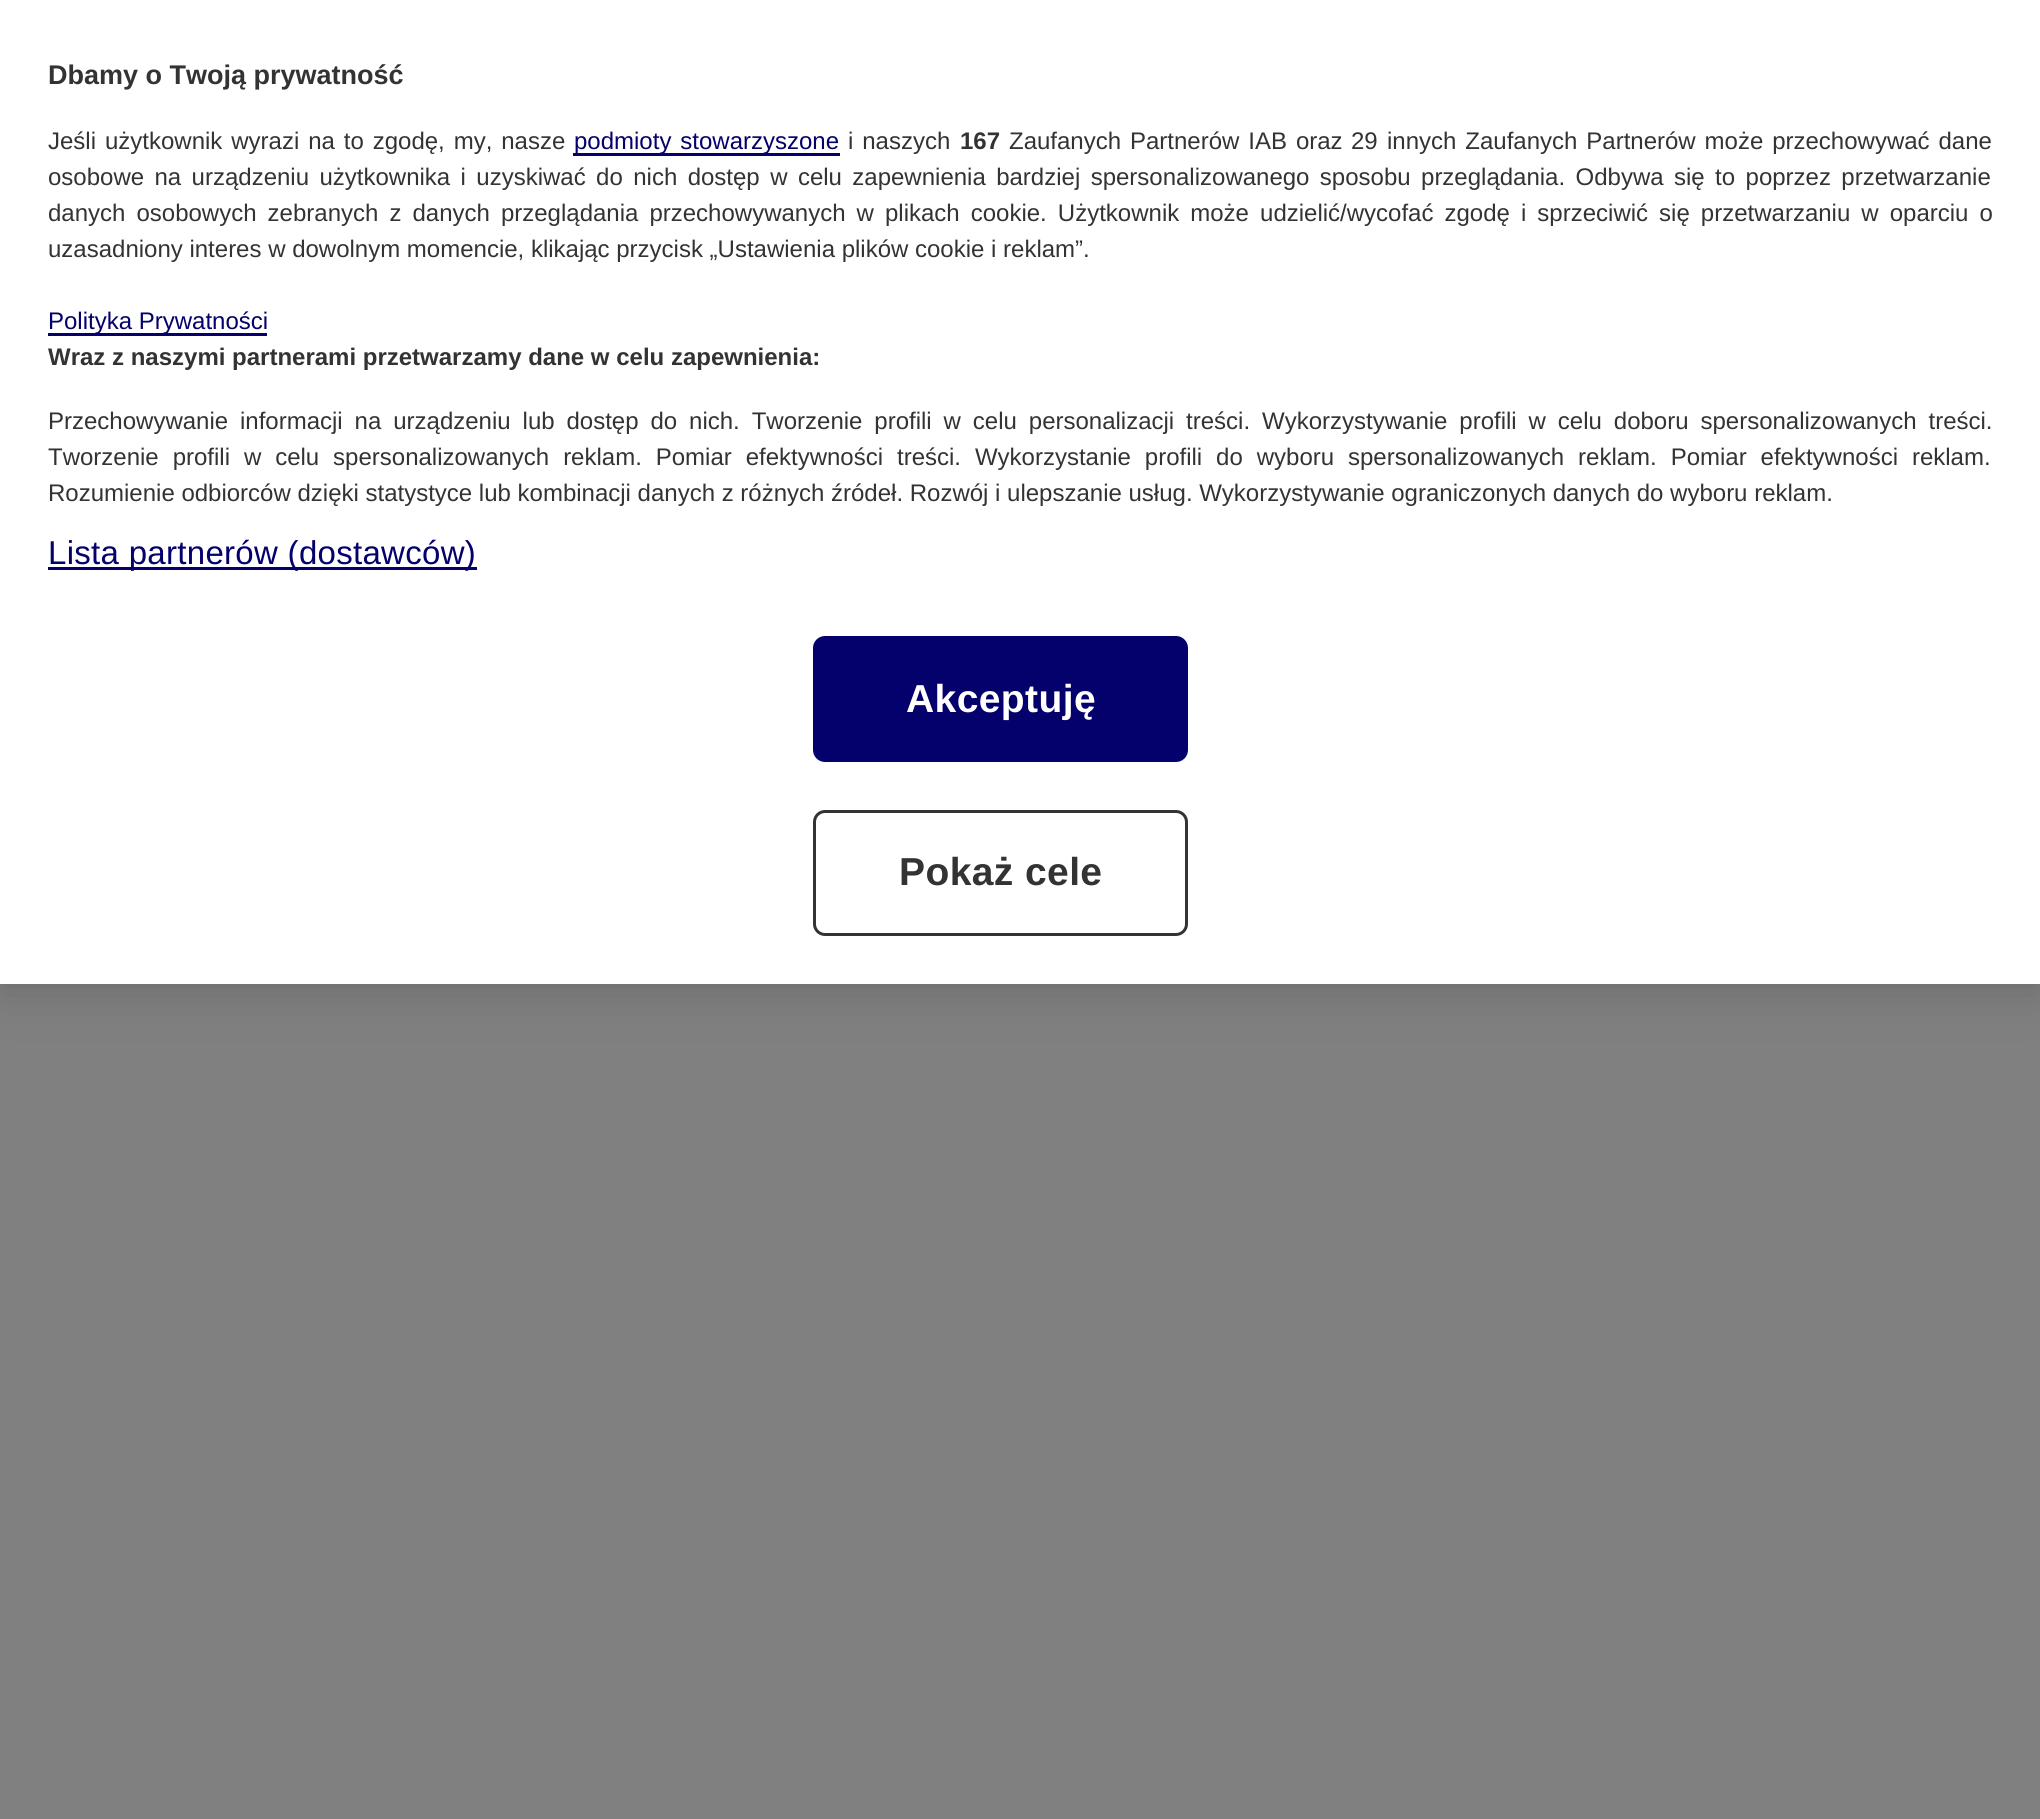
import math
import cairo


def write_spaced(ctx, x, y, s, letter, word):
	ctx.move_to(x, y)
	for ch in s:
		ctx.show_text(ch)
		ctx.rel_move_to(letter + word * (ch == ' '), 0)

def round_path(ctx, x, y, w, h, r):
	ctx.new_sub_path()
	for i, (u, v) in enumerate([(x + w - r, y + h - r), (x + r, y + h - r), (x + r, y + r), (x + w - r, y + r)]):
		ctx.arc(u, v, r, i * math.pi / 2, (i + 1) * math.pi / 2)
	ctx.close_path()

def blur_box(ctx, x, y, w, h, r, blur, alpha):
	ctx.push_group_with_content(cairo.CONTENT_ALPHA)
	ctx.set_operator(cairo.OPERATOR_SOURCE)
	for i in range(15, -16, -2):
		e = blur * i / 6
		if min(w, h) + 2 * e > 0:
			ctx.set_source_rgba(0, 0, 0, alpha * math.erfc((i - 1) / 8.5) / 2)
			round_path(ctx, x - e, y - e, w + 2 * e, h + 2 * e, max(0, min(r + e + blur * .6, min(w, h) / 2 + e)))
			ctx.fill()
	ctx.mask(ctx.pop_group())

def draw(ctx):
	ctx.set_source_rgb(0.502, 0.502, 0.502)
	ctx.paint()
	ctx.set_source_rgb(0, 0, 0)
	blur_box(ctx, 0, 0, 2040, 984, 0, 27, 0.2)
	ctx.set_source_rgb(1, 1, 1)
	ctx.rectangle(0, 0, 2040, 984)
	ctx.fill()
	ctx.select_font_face('Liberation Sans', cairo.FONT_SLANT_NORMAL, cairo.FONT_WEIGHT_BOLD)
	ctx.set_font_size(27)
	ctx.set_source_rgb(0.2, 0.2, 0.2)
	ctx.move_to(48, 84)
	ctx.show_text('Dbamy o Twoją prywatność')
	ctx.select_font_face('Liberation Sans')
	ctx.set_font_size(24)
	write_spaced(ctx, 48, 149, 'Jeśli użytkownik wyrazi na to zgodę, my, nasze', 0, 2.25)
	ctx.set_source_rgb(0.016, 0, 0.424)
	ctx.rectangle(573, 153, 267, 3)
	ctx.fill()
	write_spaced(ctx, 574, 149, 'podmioty stowarzyszone', 0, 2.25)
	ctx.set_source_rgb(0.2, 0.2, 0.2)
	write_spaced(ctx, 848, 149, 'i naszych', 0, 2.25)
	ctx.select_font_face('Liberation Sans', cairo.FONT_SLANT_NORMAL, cairo.FONT_WEIGHT_BOLD)
	ctx.move_to(960, 149)
	ctx.show_text('167')
	ctx.select_font_face('Liberation Sans')
	write_spaced(ctx, 1009, 149, 'Zaufanych Partnerów IAB oraz', 0, 2.25)
	ctx.move_to(1351, 149)
	ctx.show_text('29')
	write_spaced(ctx, 1387, 149, 'innych Zaufanych Partnerów może przechowywać dane', 0, 2.25)
	write_spaced(ctx, 48, 185, 'osobowe na urządzeniu użytkownika i uzyskiwać do nich dostęp w celu zapewnienia bardziej spersonalizowanego sposobu przeglądania. Odbywa się to poprzez przetwarzanie', 0, 3.75)
	write_spaced(ctx, 48, 221, 'danych osobowych zebranych z danych przeglądania przechowywanych w plikach cookie. Użytkownik może udzielić/wycofać zgodę i sprzeciwić się przetwarzaniu w oparciu o', 0, 4.4)
	ctx.move_to(48, 257)
	ctx.show_text('uzasadniony interes w dowolnym momencie, klikając przycisk „Ustawienia plików cookie i reklam”.')
	ctx.set_source_rgb(0.016, 0, 0.424)
	ctx.rectangle(48, 333, 219, 3)
	ctx.fill()
	ctx.move_to(48, 329)
	ctx.show_text('Polityka Prywatności')
	ctx.select_font_face('Liberation Sans', cairo.FONT_SLANT_NORMAL, cairo.FONT_WEIGHT_BOLD)
	ctx.set_source_rgb(0.2, 0.2, 0.2)
	ctx.move_to(48, 365)
	ctx.show_text('Wraz z naszymi partnerami przetwarzamy dane w celu zapewnienia:')
	ctx.select_font_face('Liberation Sans')
	write_spaced(ctx, 48, 429, 'Przechowywanie informacji na urządzeniu lub dostęp do nich. Tworzenie profili w celu personalizacji treści. Wykorzystywanie profili w celu doboru spersonalizowanych treści.', 0, 5.25)
	write_spaced(ctx, 48, 465, 'Tworzenie profili w celu spersonalizowanych reklam. Pomiar efektywności treści. Wykorzystanie profili do wyboru spersonalizowanych reklam. Pomiar efektywności reklam.', 0, 7.25)
	ctx.move_to(48, 501)
	ctx.show_text('Rozumienie odbiorców dzięki statystyce lub kombinacji danych z różnych źródeł. Rozwój i ulepszanie usług. Wykorzystywanie ograniczonych danych do wyboru reklam.')
	ctx.set_source_rgb(0.016, 0, 0.424)
	ctx.rectangle(48, 567, 429, 3)
	ctx.fill()
	ctx.set_font_size(33)
	write_spaced(ctx, 48, 564, 'Lista partnerów (dostawców)', 0.3, 0)
	round_path(ctx, 814.5, 637.5, 372, 123, 10.5)
	ctx.fill_preserve()
	ctx.set_line_width(3)
	ctx.stroke()
	ctx.select_font_face('Liberation Sans', cairo.FONT_SLANT_NORMAL, cairo.FONT_WEIGHT_BOLD)
	ctx.set_font_size(39)
	ctx.set_source_rgb(1, 1, 1)
	write_spaced(ctx, 906, 712, 'Akceptuję', 0.4, 0)
	round_path(ctx, 814.5, 811.5, 372, 123, 10.5)
	ctx.set_source_rgb(0.2, 0.2, 0.2)
	ctx.stroke()
	write_spaced(ctx, 899, 885, 'Pokaż cele', 0.4, 0)


surface = cairo.ImageSurface(cairo.FORMAT_RGB24, 2040, 1819)
ctx = cairo.Context(surface)
options = cairo.FontOptions()
options.set_hint_metrics(cairo.HINT_METRICS_OFF)
options.set_hint_style(cairo.HINT_STYLE_NONE)
ctx.set_font_options(options)
ctx.set_miter_limit(4)
draw(ctx)
surface.write_to_png('image.png')
